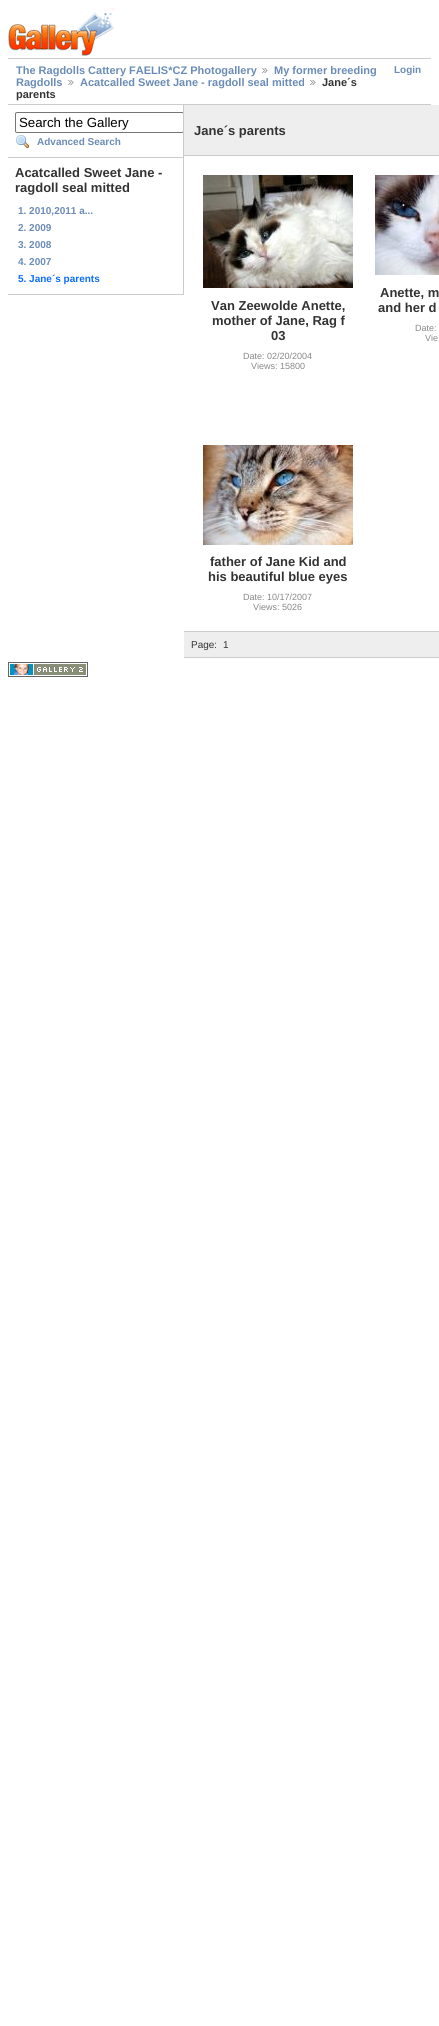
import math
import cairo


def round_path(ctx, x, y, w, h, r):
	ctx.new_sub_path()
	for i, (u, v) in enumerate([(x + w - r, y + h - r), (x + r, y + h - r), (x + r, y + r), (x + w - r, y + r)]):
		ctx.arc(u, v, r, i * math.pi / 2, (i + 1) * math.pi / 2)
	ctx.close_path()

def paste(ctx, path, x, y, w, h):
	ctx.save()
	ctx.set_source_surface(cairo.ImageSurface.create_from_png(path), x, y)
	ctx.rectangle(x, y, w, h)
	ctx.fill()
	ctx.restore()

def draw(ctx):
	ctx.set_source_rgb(1, 1, 1)
	ctx.paint()
	paste(ctx, 'media/1.png', 8, 8, 107, 48)
	ctx.set_source_rgb(0.8, 0.8, 0.8)
	ctx.rectangle(8, 58, 423, 1)
	ctx.fill()
	ctx.rectangle(8, 104, 423, 1)
	ctx.fill()
	ctx.select_font_face('Liberation Sans', cairo.FONT_SLANT_NORMAL, cairo.FONT_WEIGHT_BOLD)
	ctx.set_font_size(11)
	ctx.set_source_rgb(0.42, 0.549, 0.718)
	ctx.move_to(16, 74)
	ctx.show_text('The Ragdolls Cattery FAELIS*CZ Photogallery')
	paste(ctx, 'media/2.png', 262, 68, 6, 5)
	ctx.move_to(274, 74)
	ctx.show_text('My former breeding')
	ctx.move_to(16, 86)
	ctx.show_text('Ragdolls')
	paste(ctx, 'media/2.png', 68, 80, 6, 5)
	ctx.move_to(80, 86)
	ctx.show_text('Acatcalled Sweet Jane - ragdoll seal mitted')
	paste(ctx, 'media/2.png', 310, 80, 6, 5)
	ctx.set_source_rgb(0.2, 0.2, 0.2)
	ctx.move_to(322, 86)
	ctx.show_text('Jane´s')
	ctx.move_to(16, 98)
	ctx.show_text('parents')
	ctx.set_font_size(10)
	ctx.set_source_rgb(0.42, 0.549, 0.718)
	ctx.move_to(394, 73)
	ctx.show_text('Login')
	ctx.set_source_rgb(0.8, 0.8, 0.8)
	ctx.rectangle(183, 105, 1, 190)
	ctx.fill()
	ctx.rectangle(8, 157, 175, 1)
	ctx.fill()
	ctx.save()
	ctx.rectangle(8, 105, 175, 190)
	ctx.clip()
	round_path(ctx, 15.5, 112.5, 168, 20, 1.5)
	ctx.set_source_rgb(0.463, 0.463, 0.463)
	ctx.set_line_width(1)
	ctx.stroke()
	ctx.restore()
	ctx.select_font_face('Liberation Sans')
	ctx.set_font_size(13.25)
	ctx.set_source_rgb(0, 0, 0)
	ctx.move_to(19, 127)
	ctx.show_text('Search the Gallery')
	paste(ctx, 'media/3.png', 16, 135, 13, 14)
	ctx.select_font_face('Liberation Sans', cairo.FONT_SLANT_NORMAL, cairo.FONT_WEIGHT_BOLD)
	ctx.set_font_size(10)
	ctx.set_source_rgb(0.42, 0.549, 0.718)
	ctx.move_to(37, 145)
	ctx.show_text('Advanced Search')
	ctx.set_source_rgb(0.8, 0.8, 0.8)
	ctx.rectangle(8, 294, 175, 1)
	ctx.fill()
	ctx.set_font_size(13)
	ctx.set_source_rgb(0.2, 0.2, 0.2)
	ctx.move_to(15, 177)
	ctx.show_text('Acatcalled Sweet Jane -')
	ctx.move_to(15, 192)
	ctx.show_text('ragdoll seal mitted')
	ctx.set_font_size(10)
	ctx.set_source_rgb(0.42, 0.549, 0.718)
	for x, y, s in [
		(18, 214, '1. 2010,2011 a...'),
		(18, 231, '2. 2009'),
		(18, 248, '3. 2008'),
		(18, 265, '4. 2007'),
	]:
		ctx.move_to(x, y)
		ctx.show_text(s)
	ctx.set_source_rgb(0.043, 0.424, 1)
	ctx.move_to(18, 282)
	ctx.show_text('5. Jane´s parents')
	ctx.set_source_rgb(0.933, 0.933, 0.933)
	ctx.rectangle(184, 105, 255, 50)
	ctx.fill()
	ctx.set_source_rgb(0.8, 0.8, 0.8)
	ctx.rectangle(184, 155, 255, 1)
	ctx.fill()
	ctx.set_font_size(13)
	ctx.set_source_rgb(0.2, 0.2, 0.2)
	ctx.move_to(194, 135)
	ctx.show_text('Jane´s parents')
	ctx.set_source_rgb(0.8, 0.8, 0.8)
	ctx.rectangle(184, 631, 255, 1)
	ctx.fill()
	paste(ctx, 'media/4.png', 203, 175, 150, 113)
	ctx.set_source_rgb(0.2, 0.2, 0.2)
	for x, y, s in [
		(211, 310, 'Van Zeewolde Anette,'),
		(212, 325, 'mother of Jane, Rag f'),
		(271, 340, '03'),
	]:
		ctx.move_to(x, y)
		ctx.show_text(s)
	ctx.select_font_face('Liberation Sans')
	ctx.set_font_size(9)
	ctx.set_source_rgb(0.533, 0.533, 0.533)
	ctx.move_to(243, 359)
	ctx.show_text('Date: 02/20/2004')
	ctx.move_to(251, 369)
	ctx.show_text('Views: 15800')
	paste(ctx, 'media/5.png', 375, 175, 64, 100)
	ctx.select_font_face('Liberation Sans', cairo.FONT_SLANT_NORMAL, cairo.FONT_WEIGHT_BOLD)
	ctx.set_font_size(13)
	ctx.set_source_rgb(0.2, 0.2, 0.2)
	ctx.move_to(380, 297)
	ctx.show_text('Anette, m')
	ctx.move_to(378, 312)
	ctx.show_text('and her d')
	ctx.select_font_face('Liberation Sans')
	ctx.set_font_size(9)
	ctx.set_source_rgb(0.533, 0.533, 0.533)
	ctx.move_to(415, 331)
	ctx.show_text('Date:')
	ctx.move_to(425, 341)
	ctx.show_text('Vie')
	paste(ctx, 'media/6.png', 203, 445, 150, 100)
	ctx.select_font_face('Liberation Sans', cairo.FONT_SLANT_NORMAL, cairo.FONT_WEIGHT_BOLD)
	ctx.set_font_size(13)
	ctx.set_source_rgb(0.2, 0.2, 0.2)
	ctx.move_to(210, 566)
	ctx.show_text('father of Jane Kid and')
	ctx.move_to(208, 581)
	ctx.show_text('his beautiful blue eyes')
	ctx.select_font_face('Liberation Sans')
	ctx.set_font_size(9)
	ctx.set_source_rgb(0.533, 0.533, 0.533)
	ctx.move_to(243, 600)
	ctx.show_text('Date: 10/17/2007')
	ctx.move_to(253, 610)
	ctx.show_text('Views: 5026')
	ctx.set_source_rgb(0.933, 0.933, 0.933)
	ctx.rectangle(184, 632, 255, 25)
	ctx.fill()
	ctx.set_source_rgb(0.8, 0.8, 0.8)
	ctx.rectangle(184, 657, 255, 1)
	ctx.fill()
	ctx.set_font_size(10)
	ctx.set_source_rgb(0.2, 0.2, 0.2)
	ctx.move_to(191, 648)
	ctx.show_text('Page:')
	ctx.move_to(223, 648)
	ctx.show_text('1')
	paste(ctx, 'media/7.png', 8, 662, 80, 15)


surface = cairo.ImageSurface(cairo.FORMAT_RGB24, 439, 2026)
ctx = cairo.Context(surface)
options = cairo.FontOptions()
options.set_hint_metrics(cairo.HINT_METRICS_OFF)
options.set_hint_style(cairo.HINT_STYLE_NONE)
ctx.set_font_options(options)
ctx.set_miter_limit(4)
draw(ctx)
surface.write_to_png('image.png')
